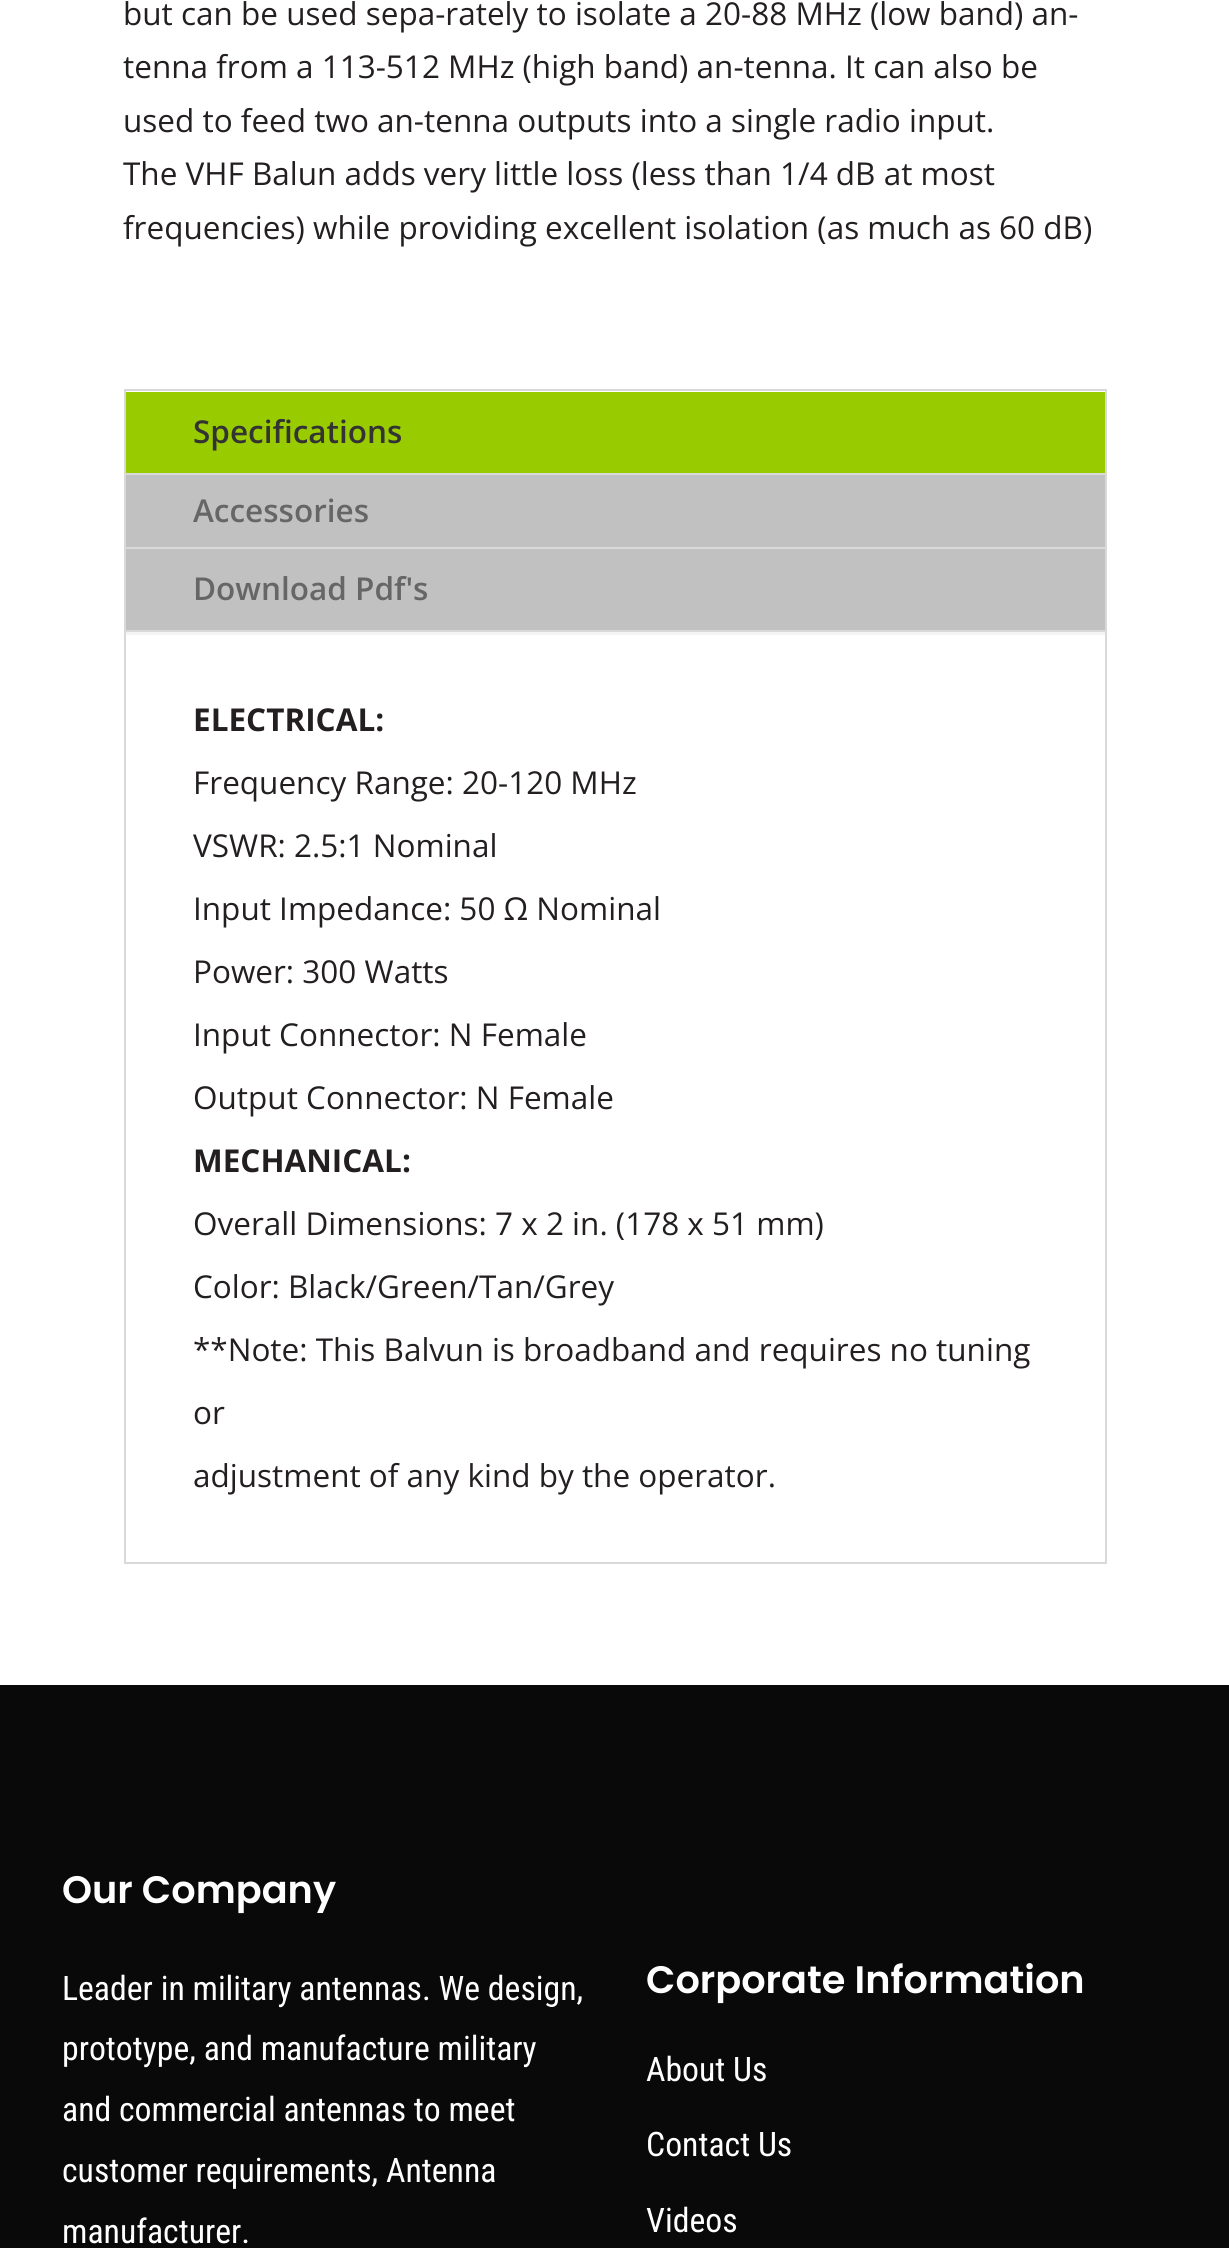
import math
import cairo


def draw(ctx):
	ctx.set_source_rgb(1, 1, 1)
	ctx.paint()
	ctx.select_font_face('Open Sans')
	ctx.set_font_size(31.5)
	ctx.set_source_rgb(0.137, 0.122, 0.125)
	for x, y, s in [
		(123, 25, 'but can be used sepa-rately to isolate a 20-88 MHz (low band) an-'),
		(123, 78, 'tenna from a 113-512 MHz (high band) an-tenna. It can also be'),
		(123, 132, 'used to feed two an-tenna outputs into a single radio input.'),
		(123, 185, 'The VHF Balun adds very little loss (less than 1/4 dB at most'),
		(123, 239, 'frequencies) while providing excellent isolation (as much as 60 dB)'),
	]:
		ctx.move_to(x, y)
		ctx.show_text(s)
	ctx.rectangle(125, 390, 981, 1173)
	ctx.set_source_rgb(0.851, 0.851, 0.851)
	ctx.stroke()
	ctx.set_source_rgb(0.957, 0.957, 0.957)
	ctx.rectangle(126, 632, 979, 3)
	ctx.fill()
	ctx.set_source_rgb(0.6, 0.8, 0)
	ctx.rectangle(126, 392, 979, 81)
	ctx.fill()
	ctx.set_source_rgb(0.851, 0.851, 0.851)
	ctx.rectangle(126, 473, 979, 2)
	ctx.fill()
	ctx.select_font_face('Open Sans SemiBold')
	ctx.set_source_rgb(0.2, 0.2, 0.2)
	ctx.move_to(193, 443)
	ctx.show_text('Specifications')
	ctx.set_source_rgb(0.757, 0.757, 0.757)
	ctx.rectangle(126, 475, 979, 72)
	ctx.fill()
	ctx.set_source_rgb(0.851, 0.851, 0.851)
	ctx.rectangle(126, 547, 979, 2)
	ctx.fill()
	ctx.set_source_rgb(0.4, 0.4, 0.4)
	ctx.move_to(193, 522)
	ctx.show_text('Accessories')
	ctx.set_source_rgb(0.757, 0.757, 0.757)
	ctx.rectangle(126, 549, 979, 81)
	ctx.fill()
	ctx.set_source_rgb(0.851, 0.851, 0.851)
	ctx.rectangle(126, 630, 979, 2)
	ctx.fill()
	ctx.set_source_rgb(0.4, 0.4, 0.4)
	ctx.move_to(193, 600)
	ctx.show_text('Download Pdf\'s')
	ctx.select_font_face('Open Sans', cairo.FONT_SLANT_NORMAL, cairo.FONT_WEIGHT_BOLD)
	ctx.set_source_rgb(0.137, 0.122, 0.125)
	ctx.move_to(193, 731)
	ctx.show_text('ELECTRICAL:')
	ctx.select_font_face('Open Sans')
	for x, y, s in [
		(193, 794, 'Frequency Range: 20-120 MHz'),
		(193, 857, 'VSWR: 2.5:1 Nominal'),
		(193, 920, 'Input Impedance: 50 Ω Nominal'),
		(193, 983, 'Power: 300 Watts'),
		(193, 1046, 'Input Connector: N Female'),
		(193, 1109, 'Output Connector: N Female'),
	]:
		ctx.move_to(x, y)
		ctx.show_text(s)
	ctx.select_font_face('Open Sans', cairo.FONT_SLANT_NORMAL, cairo.FONT_WEIGHT_BOLD)
	ctx.move_to(193, 1172)
	ctx.show_text('MECHANICAL:')
	ctx.select_font_face('Open Sans')
	for x, y, s in [
		(193, 1235, 'Overall Dimensions: 7 x 2 in. (178 x 51 mm)'),
		(193, 1298, 'Color: Black/Green/Tan/Grey'),
		(193, 1361, '**Note: This Balvun is broadband and requires no tuning'),
		(193, 1424, 'or'),
		(193, 1487, 'adjustment of any kind by the operator.'),
	]:
		ctx.move_to(x, y)
		ctx.show_text(s)
	ctx.set_source_rgb(0.039, 0.039, 0.039)
	ctx.rectangle(0, 1685, 1229, 563)
	ctx.fill()
	ctx.select_font_face('Poppins SemiBold')
	ctx.set_font_size(38.25)
	ctx.set_source_rgb(1, 1, 1)
	ctx.move_to(62, 1903)
	ctx.show_text('Our Company')
	ctx.select_font_face('Roboto Condensed')
	ctx.set_font_size(33.75)
	for x, y, s in [
		(62, 2000, 'Leader in military antennas. We design,'),
		(62, 2060, 'prototype, and manufacture military'),
		(62, 2121, 'and commercial antennas to meet'),
		(62, 2182, 'customer requirements, Antenna'),
		(62, 2243, 'manufacturer.'),
	]:
		ctx.move_to(x, y)
		ctx.show_text(s)
	ctx.select_font_face('Poppins SemiBold')
	ctx.set_font_size(38.25)
	ctx.move_to(646, 1993)
	ctx.show_text('Corporate Information')
	ctx.select_font_face('Roboto Condensed')
	ctx.set_font_size(33.75)
	for x, y, s in [
		(646, 2081, 'About Us'),
		(646, 2156, 'Contact Us'),
		(646, 2232, 'Videos'),
	]:
		ctx.move_to(x, y)
		ctx.show_text(s)


surface = cairo.ImageSurface(cairo.FORMAT_RGB24, 1229, 2248)
ctx = cairo.Context(surface)
options = cairo.FontOptions()
options.set_hint_metrics(cairo.HINT_METRICS_OFF)
options.set_hint_style(cairo.HINT_STYLE_NONE)
ctx.set_font_options(options)
ctx.set_miter_limit(4)
draw(ctx)
surface.write_to_png('image.png')
